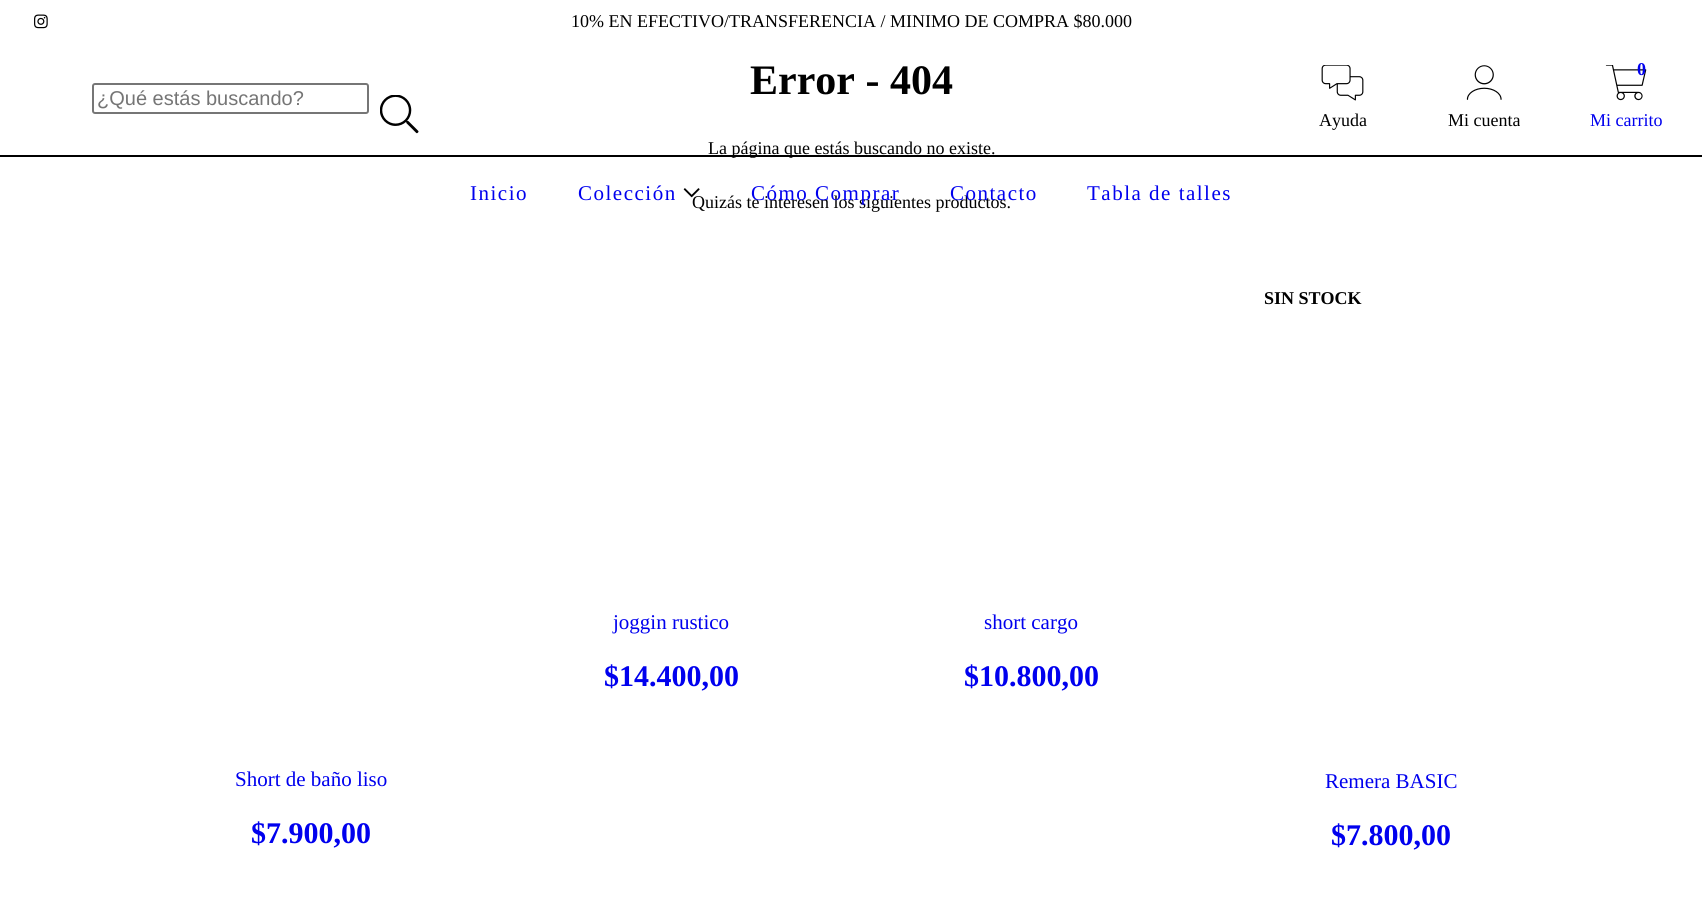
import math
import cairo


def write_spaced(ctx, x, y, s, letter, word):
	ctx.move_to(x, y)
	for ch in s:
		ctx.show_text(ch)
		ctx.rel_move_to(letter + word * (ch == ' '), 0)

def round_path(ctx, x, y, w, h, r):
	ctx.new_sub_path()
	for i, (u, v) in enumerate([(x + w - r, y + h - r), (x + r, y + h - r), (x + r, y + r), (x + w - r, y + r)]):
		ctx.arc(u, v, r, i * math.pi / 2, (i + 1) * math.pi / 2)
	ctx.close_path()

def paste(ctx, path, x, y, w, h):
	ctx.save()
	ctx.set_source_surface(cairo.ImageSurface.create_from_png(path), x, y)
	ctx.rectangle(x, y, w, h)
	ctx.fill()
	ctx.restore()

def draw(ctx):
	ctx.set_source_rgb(1, 1, 1)
	ctx.paint()
	paste(ctx, 'media/1.png', 34, 14, 14, 15)
	ctx.select_font_face('Liberation Serif')
	ctx.set_font_size(18)
	ctx.set_source_rgb(0, 0, 0)
	ctx.move_to(571, 27)
	ctx.show_text('10% EN EFECTIVO/TRANSFERENCIA / MINIMO DE COMPRA $80.000')
	round_path(ctx, 93, 84, 275, 29, 2)
	ctx.set_source_rgb(0.463, 0.463, 0.463)
	ctx.stroke()
	ctx.select_font_face('Liberation Sans')
	ctx.set_font_size(20)
	ctx.set_source_rgb(0.459, 0.459, 0.459)
	ctx.move_to(97, 105)
	ctx.show_text('¿Qué estás buscando?')
	paste(ctx, 'media/2.png', 380, 95, 39, 39)
	paste(ctx, 'media/3.png', 1321, 65, 43, 36)
	ctx.select_font_face('Liberation Serif')
	ctx.set_font_size(18)
	ctx.set_source_rgb(0, 0, 0)
	ctx.move_to(1319, 126)
	ctx.show_text('Ayuda')
	paste(ctx, 'media/4.png', 1466, 65, 36, 35)
	ctx.move_to(1448, 126)
	ctx.show_text('Mi cuenta')
	paste(ctx, 'media/5.png', 1605, 65, 42, 36)
	ctx.select_font_face('Liberation Serif', cairo.FONT_SLANT_NORMAL, cairo.FONT_WEIGHT_BOLD)
	ctx.set_source_rgb(0, 0, 0.933)
	ctx.move_to(1637, 75)
	ctx.show_text('0')
	ctx.select_font_face('Liberation Serif')
	ctx.move_to(1590, 126)
	ctx.show_text('Mi carrito')
	ctx.set_source_rgb(0, 0, 0)
	ctx.rectangle(0, 155, 1702, 2)
	ctx.fill()
	ctx.set_font_size(21)
	ctx.set_source_rgb(0, 0, 0.933)
	write_spaced(ctx, 470, 200, 'Inicio', 1.5, 0)
	write_spaced(ctx, 578, 200, 'Colección', 1.5, 0)
	ctx.set_font_size(18)
	ctx.set_source_rgb(0, 0, 0)
	ctx.move_to(692, 208)
	ctx.show_text('Quizás te interesen los siguientes productos.')
	paste(ctx, 'media/6.png', 683, 188, 17, 10)
	ctx.set_font_size(21)
	ctx.set_source_rgb(0, 0, 0.933)
	for x, y, s in [
		(751, 200, 'Cómo Comprar'),
		(950, 200, 'Contacto'),
		(1087, 200, 'Tabla de talles'),
	]:
		write_spaced(ctx, x, y, s, 1.5, 0)
	ctx.select_font_face('Liberation Serif', cairo.FONT_SLANT_NORMAL, cairo.FONT_WEIGHT_BOLD)
	ctx.set_font_size(42)
	ctx.set_source_rgb(0, 0, 0)
	ctx.move_to(750, 94)
	ctx.show_text('Error - 404')
	ctx.select_font_face('Liberation Serif')
	ctx.set_font_size(18)
	ctx.move_to(708, 154)
	ctx.show_text('La página que estás buscando no existe.')
	ctx.set_font_size(21)
	ctx.set_source_rgb(0, 0, 0.933)
	ctx.move_to(613, 629)
	ctx.show_text('joggin rustico')
	ctx.select_font_face('Liberation Serif', cairo.FONT_SLANT_NORMAL, cairo.FONT_WEIGHT_BOLD)
	ctx.set_font_size(30)
	ctx.move_to(604, 686)
	ctx.show_text('$14.400,00')
	ctx.select_font_face('Liberation Serif')
	ctx.set_font_size(21)
	ctx.move_to(984, 629)
	ctx.show_text('short cargo')
	ctx.select_font_face('Liberation Serif', cairo.FONT_SLANT_NORMAL, cairo.FONT_WEIGHT_BOLD)
	ctx.set_font_size(30)
	ctx.move_to(964, 686)
	ctx.show_text('$10.800,00')
	ctx.set_font_size(18)
	ctx.set_source_rgb(0, 0, 0)
	ctx.move_to(1264, 304)
	ctx.show_text('SIN STOCK')
	ctx.select_font_face('Liberation Serif')
	ctx.set_font_size(21)
	ctx.set_source_rgb(0, 0, 0.933)
	ctx.move_to(1325, 788)
	ctx.show_text('Remera BASIC')
	ctx.select_font_face('Liberation Serif', cairo.FONT_SLANT_NORMAL, cairo.FONT_WEIGHT_BOLD)
	ctx.set_font_size(30)
	ctx.move_to(1331, 845)
	ctx.show_text('$7.800,00')
	ctx.select_font_face('Liberation Serif')
	ctx.set_font_size(21)
	ctx.move_to(235, 786)
	ctx.show_text('Short de baño liso')
	ctx.select_font_face('Liberation Serif', cairo.FONT_SLANT_NORMAL, cairo.FONT_WEIGHT_BOLD)
	ctx.set_font_size(30)
	ctx.move_to(251, 843)
	ctx.show_text('$7.900,00')


surface = cairo.ImageSurface(cairo.FORMAT_RGB24, 1702, 920)
ctx = cairo.Context(surface)
options = cairo.FontOptions()
options.set_hint_metrics(cairo.HINT_METRICS_OFF)
options.set_hint_style(cairo.HINT_STYLE_NONE)
ctx.set_font_options(options)
ctx.set_miter_limit(4)
draw(ctx)
surface.write_to_png('image.png')
